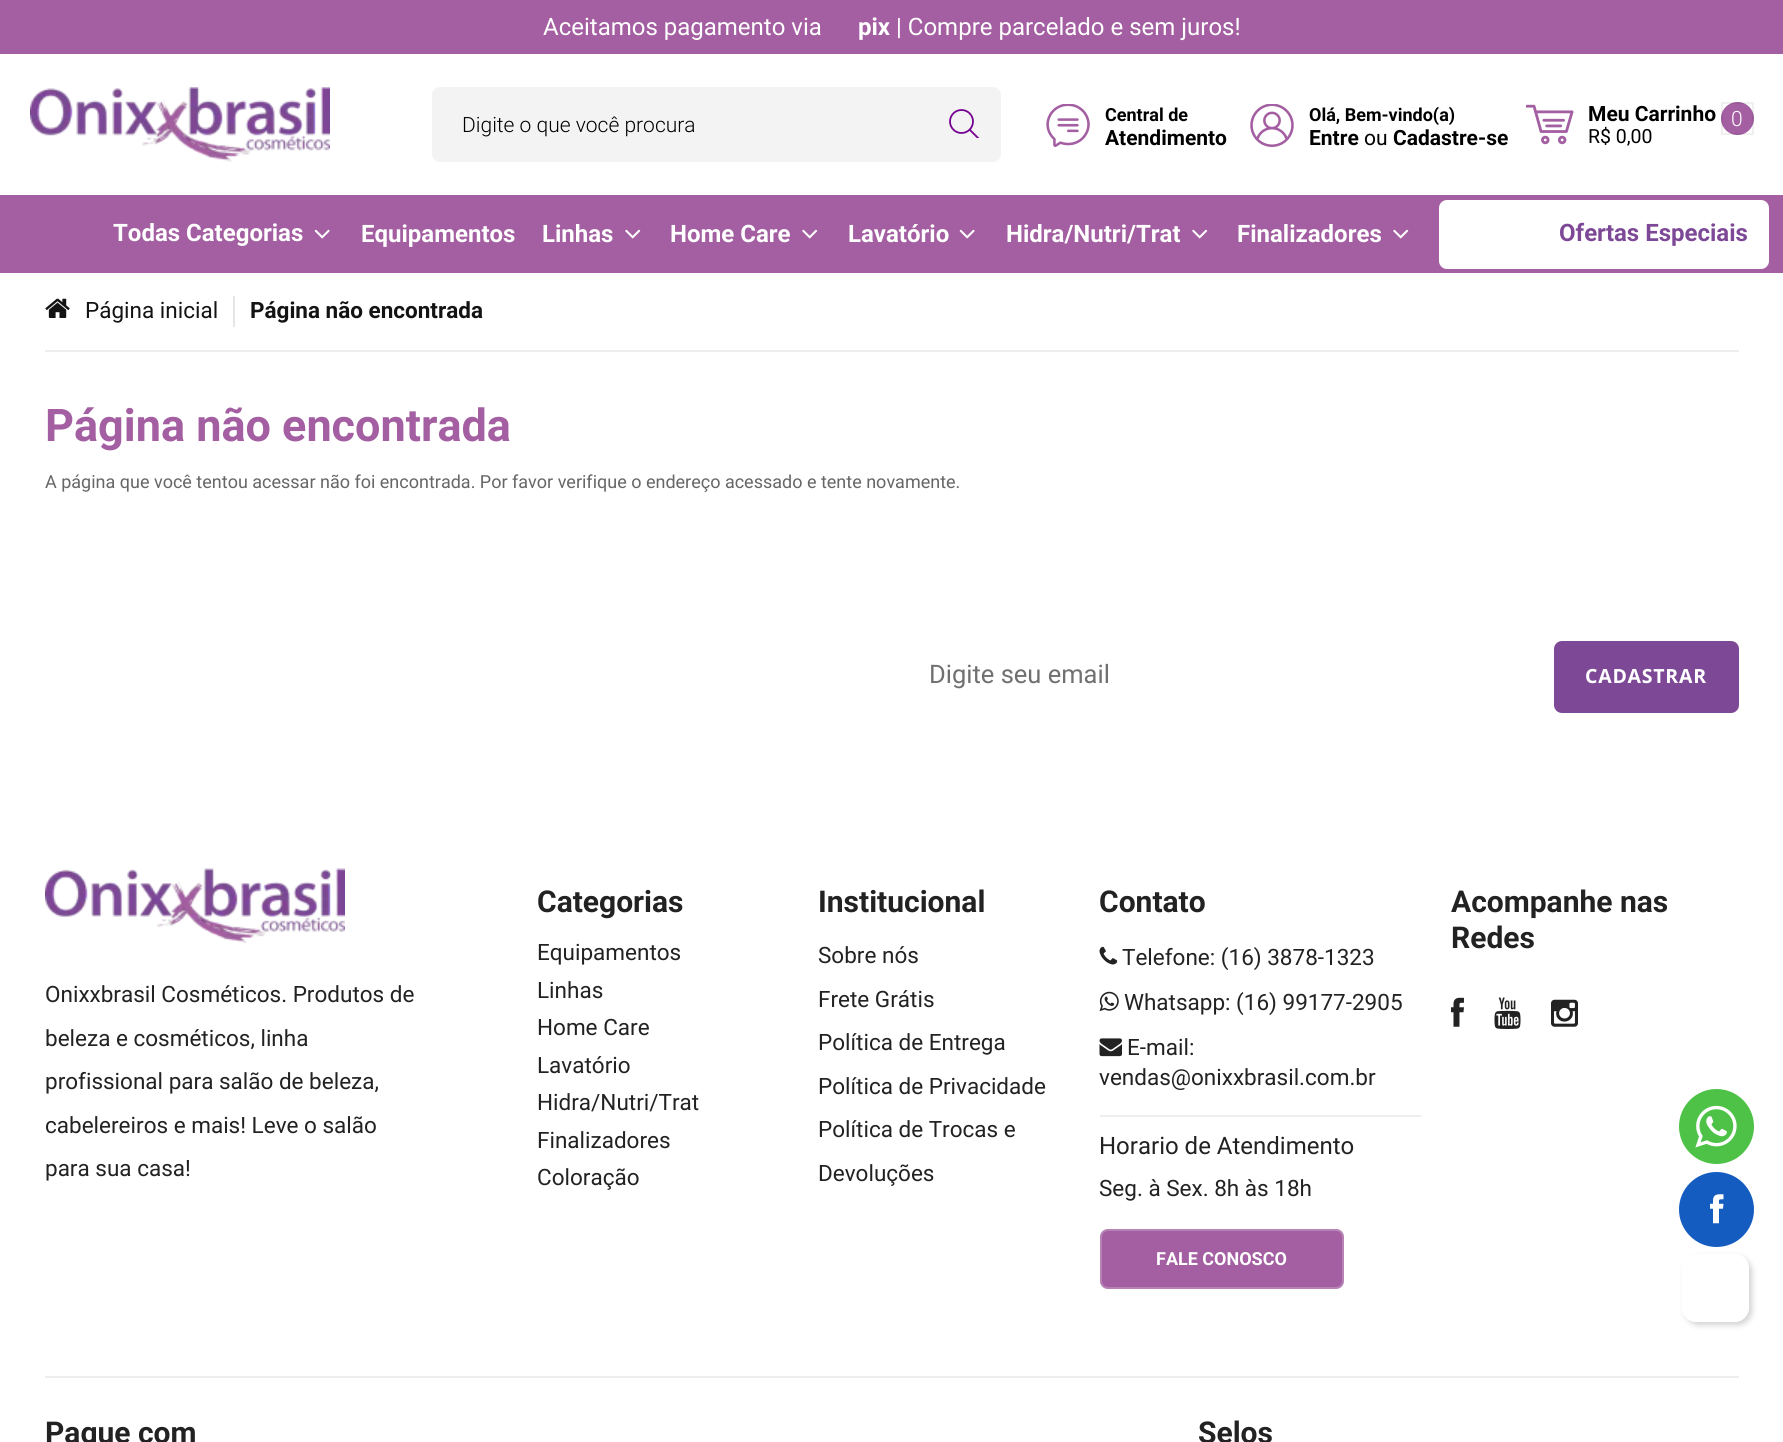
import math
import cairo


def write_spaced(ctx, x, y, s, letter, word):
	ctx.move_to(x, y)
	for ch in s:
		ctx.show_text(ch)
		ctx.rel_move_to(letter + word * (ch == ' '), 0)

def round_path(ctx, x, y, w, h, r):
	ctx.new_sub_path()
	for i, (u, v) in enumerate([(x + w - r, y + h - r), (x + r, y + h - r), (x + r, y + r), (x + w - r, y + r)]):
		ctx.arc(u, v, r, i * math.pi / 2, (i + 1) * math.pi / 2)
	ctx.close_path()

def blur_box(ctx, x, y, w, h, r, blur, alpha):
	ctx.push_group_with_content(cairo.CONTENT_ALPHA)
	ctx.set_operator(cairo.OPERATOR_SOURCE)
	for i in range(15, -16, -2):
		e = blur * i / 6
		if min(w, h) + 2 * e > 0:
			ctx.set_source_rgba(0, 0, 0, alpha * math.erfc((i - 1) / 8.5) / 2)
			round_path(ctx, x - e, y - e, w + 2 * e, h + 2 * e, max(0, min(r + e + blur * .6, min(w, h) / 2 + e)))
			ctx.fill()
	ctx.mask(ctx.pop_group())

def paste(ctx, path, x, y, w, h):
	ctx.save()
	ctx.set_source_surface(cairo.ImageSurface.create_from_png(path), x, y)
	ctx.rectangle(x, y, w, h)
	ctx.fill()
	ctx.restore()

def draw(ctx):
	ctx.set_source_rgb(1, 1, 1)
	ctx.paint()
	ctx.set_source_rgb(0.639, 0.373, 0.631)
	ctx.rectangle(0, 0, 1783, 54)
	ctx.fill()
	ctx.select_font_face('Roboto')
	ctx.set_font_size(24)
	ctx.set_source_rgb(1, 1, 1)
	ctx.move_to(543, 35)
	ctx.show_text('Aceitamos pagamento via')
	ctx.select_font_face('Roboto', cairo.FONT_SLANT_NORMAL, cairo.FONT_WEIGHT_BOLD)
	ctx.move_to(858, 35)
	ctx.show_text('pix')
	ctx.select_font_face('Roboto')
	ctx.move_to(896, 35)
	ctx.show_text('| Compre parcelado e sem juros!')
	paste(ctx, 'media/1.png', 30, 87, 300, 75)
	ctx.set_source_rgb(0.953, 0.953, 0.953)
	round_path(ctx, 432, 87, 569, 75, 8)
	ctx.fill()
	ctx.select_font_face('Roboto Light')
	ctx.set_font_size(21)
	ctx.set_source_rgb(0, 0, 0)
	ctx.move_to(462, 132)
	ctx.show_text('Digite o que você procura')
	ctx.save()
	ctx.rectangle(948, 108, 33, 30)
	ctx.clip()
	ctx.new_path()
	ctx.move_to(979, 139)
	ctx.line_to(970, 130)
	ctx.set_source_rgb(0.455, 0, 0.569)
	ctx.set_line_width(1.8)
	ctx.set_line_cap(cairo.LINE_CAP_SQUARE)
	ctx.stroke()
	ctx.restore()
	ctx.arc(961.5, 121.5, 11.5, 0, 2 * math.pi)
	ctx.set_source_rgb(0.455, 0, 0.569)
	ctx.set_line_width(1.8)
	ctx.stroke()
	paste(ctx, 'media/2.png', 1046, 104, 44, 43)
	ctx.select_font_face('Roboto', cairo.FONT_SLANT_NORMAL, cairo.FONT_WEIGHT_BOLD)
	ctx.set_font_size(18)
	ctx.set_source_rgb(0, 0, 0)
	ctx.move_to(1105, 121)
	ctx.show_text('Central de')
	ctx.set_font_size(21)
	ctx.move_to(1105, 145)
	ctx.show_text('Atendimento')
	paste(ctx, 'media/3.png', 1250, 104, 44, 43)
	ctx.set_font_size(18)
	ctx.move_to(1309, 121)
	ctx.show_text('Olá, Bem-vindo(a)')
	ctx.set_font_size(21)
	ctx.move_to(1309, 145)
	ctx.show_text('Entre')
	ctx.select_font_face('Roboto')
	ctx.move_to(1364, 145)
	ctx.show_text('ou')
	ctx.select_font_face('Roboto', cairo.FONT_SLANT_NORMAL, cairo.FONT_WEIGHT_BOLD)
	ctx.move_to(1393, 145)
	ctx.show_text('Cadastre-se')
	paste(ctx, 'media/4.png', 1526, 104, 48, 41)
	ctx.move_to(1588, 121)
	ctx.show_text('Meu Carrinho')
	ctx.select_font_face('Roboto')
	ctx.set_font_size(19.5)
	ctx.move_to(1588, 143)
	ctx.show_text('R$ 0,00')
	ctx.set_source_rgb(0.639, 0.373, 0.631)
	ctx.new_path()
	ctx.arc(1737.5, 118.5, 16.5, 0, 2 * math.pi)
	ctx.fill()
	ctx.rectangle(1722, 103, 31, 31)
	ctx.set_source_rgba(0, 0, 0, 0.06)
	ctx.set_line_width(2)
	ctx.stroke()
	ctx.select_font_face('Roboto Light')
	ctx.set_font_size(21)
	ctx.set_source_rgb(1, 1, 1)
	ctx.move_to(1731, 126)
	ctx.show_text('0')
	ctx.set_source_rgb(0.639, 0.373, 0.631)
	ctx.rectangle(0, 195, 1783, 78)
	ctx.fill()
	ctx.select_font_face('Roboto', cairo.FONT_SLANT_NORMAL, cairo.FONT_WEIGHT_BOLD)
	ctx.set_font_size(24)
	ctx.set_source_rgb(1, 1, 1)
	ctx.move_to(113, 241)
	ctx.show_text('Todas Categorias')
	paste(ctx, 'media/5.png', 314, 229, 16, 10)
	ctx.move_to(361, 242)
	ctx.show_text('Equipamentos')
	ctx.move_to(542, 242)
	ctx.show_text('Linhas')
	paste(ctx, 'media/6.png', 625, 229, 16, 10)
	ctx.move_to(670, 242)
	ctx.show_text('Home Care')
	paste(ctx, 'media/6.png', 802, 229, 16, 10)
	ctx.move_to(848, 242)
	ctx.show_text('Lavatório')
	paste(ctx, 'media/5.png', 959, 229, 16, 10)
	ctx.move_to(1006, 242)
	ctx.show_text('Hidra/Nutri/Trat')
	paste(ctx, 'media/6.png', 1192, 229, 16, 10)
	ctx.move_to(1237, 242)
	ctx.show_text('Finalizadores')
	paste(ctx, 'media/6.png', 1393, 229, 16, 10)
	round_path(ctx, 1439, 200, 330, 69, 8)
	ctx.fill()
	ctx.set_source_rgb(0.49, 0.286, 0.588)
	ctx.move_to(1559, 241)
	ctx.show_text('Ofertas Especiais')
	ctx.set_source_rgb(0.933, 0.933, 0.933)
	ctx.rectangle(45, 350, 1694, 2)
	ctx.fill()
	paste(ctx, 'media/7.png', 45, 298, 25, 20)
	ctx.select_font_face('Roboto')
	ctx.set_font_size(22.5)
	ctx.set_source_rgb(0.078, 0.075, 0.075)
	ctx.move_to(85, 318)
	ctx.show_text('Página inicial')
	ctx.set_source_rgb(0.902, 0.902, 0.902)
	ctx.rectangle(233, 296, 2, 31)
	ctx.fill()
	ctx.select_font_face('Roboto', cairo.FONT_SLANT_NORMAL, cairo.FONT_WEIGHT_BOLD)
	ctx.set_source_rgb(0.078, 0.075, 0.075)
	ctx.move_to(250, 318)
	ctx.show_text('Página não encontrada')
	ctx.set_font_size(45)
	ctx.set_source_rgb(0.639, 0.373, 0.631)
	ctx.move_to(45, 441)
	ctx.show_text('Página não encontrada')
	ctx.select_font_face('Roboto')
	ctx.set_font_size(18)
	ctx.set_source_rgb(0.4, 0.4, 0.4)
	ctx.move_to(45, 488)
	ctx.show_text('A página que você tentou acessar não foi encontrada. Por favor verifique o endereço acessado e tente novamente.')
	ctx.set_font_size(25.5)
	ctx.set_source_rgb(0.439, 0.439, 0.439)
	ctx.move_to(929, 683)
	ctx.show_text('Digite seu email')
	ctx.set_source_rgb(0.49, 0.286, 0.588)
	round_path(ctx, 1554, 641, 185, 72, 8)
	ctx.fill()
	ctx.select_font_face('Open Sans', cairo.FONT_SLANT_NORMAL, cairo.FONT_WEIGHT_BOLD)
	ctx.set_font_size(19.5)
	ctx.set_source_rgb(1, 1, 1)
	write_spaced(ctx, 1585, 683, 'CADASTRAR', 0.75, 0)
	paste(ctx, 'media/8.png', 45, 868, 300, 76)
	ctx.select_font_face('Roboto')
	ctx.set_font_size(22.5)
	ctx.set_source_rgb(0.133, 0.133, 0.133)
	for x, y, s in [
		(45, 1002, 'Onixxbrasil Cosméticos. Produtos de'),
		(45, 1046, 'beleza e cosméticos, linha'),
		(45, 1089, 'profissional para salão de beleza,'),
		(45, 1133, 'cabelereiros e mais! Leve o salão'),
		(45, 1176, 'para sua casa!'),
	]:
		ctx.move_to(x, y)
		ctx.show_text(s)
	ctx.select_font_face('Roboto', cairo.FONT_SLANT_NORMAL, cairo.FONT_WEIGHT_BOLD)
	ctx.set_font_size(30)
	ctx.move_to(537, 912)
	ctx.show_text('Categorias')
	ctx.select_font_face('Roboto')
	ctx.set_font_size(22.5)
	for x, y, s in [
		(537, 960, 'Equipamentos'),
		(537, 998, 'Linhas'),
		(537, 1035, 'Home Care'),
		(537, 1073, 'Lavatório'),
		(537, 1110, 'Hidra/Nutri/Trat'),
		(537, 1148, 'Finalizadores'),
		(537, 1185, 'Coloração'),
	]:
		ctx.move_to(x, y)
		ctx.show_text(s)
	ctx.select_font_face('Roboto', cairo.FONT_SLANT_NORMAL, cairo.FONT_WEIGHT_BOLD)
	ctx.set_font_size(30)
	ctx.move_to(818, 912)
	ctx.show_text('Institucional')
	ctx.select_font_face('Roboto')
	ctx.set_font_size(22.5)
	for x, y, s in [
		(818, 963, 'Sobre nós'),
		(818, 1007, 'Frete Grátis'),
		(818, 1050, 'Política de Entrega'),
		(818, 1094, 'Política de Privacidade'),
		(818, 1137, 'Política de Trocas e'),
		(818, 1181, 'Devoluções'),
	]:
		ctx.move_to(x, y)
		ctx.show_text(s)
	ctx.select_font_face('Roboto', cairo.FONT_SLANT_NORMAL, cairo.FONT_WEIGHT_BOLD)
	ctx.set_font_size(30)
	ctx.move_to(1099, 912)
	ctx.show_text('Contato')
	paste(ctx, 'media/9.png', 1099, 946, 19, 19)
	ctx.select_font_face('Roboto')
	ctx.set_font_size(22.5)
	ctx.move_to(1122, 965)
	ctx.show_text('Telefone: (16) 3878-1323')
	paste(ctx, 'media/10.png', 1099, 991, 20, 21)
	ctx.move_to(1124, 1010)
	ctx.show_text('Whatsapp: (16) 99177-2905')
	paste(ctx, 'media/11.png', 1099, 1038, 23, 19)
	ctx.move_to(1127, 1055)
	ctx.show_text('E-mail:')
	ctx.move_to(1099, 1085)
	ctx.show_text('vendas@onixxbrasil.com.br')
	ctx.set_source_rgb(0.933, 0.933, 0.933)
	ctx.rectangle(1100, 1115, 321, 2)
	ctx.fill()
	ctx.set_font_size(24)
	ctx.set_source_rgb(0.133, 0.133, 0.133)
	ctx.move_to(1099, 1154)
	ctx.show_text('Horario de Atendimento')
	ctx.set_font_size(22.5)
	ctx.move_to(1099, 1196)
	ctx.show_text('Seg. à Sex. 8h às 18h')
	ctx.set_source_rgb(0.639, 0.373, 0.631)
	round_path(ctx, 1100, 1229, 244, 60, 8)
	ctx.fill()
	round_path(ctx, 1101, 1230, 242, 58, 7)
	ctx.set_source_rgba(1, 1, 1, 0.22)
	ctx.stroke()
	ctx.select_font_face('Roboto', cairo.FONT_SLANT_NORMAL, cairo.FONT_WEIGHT_BOLD)
	ctx.set_font_size(18)
	ctx.set_source_rgb(1, 1, 1)
	ctx.move_to(1156, 1265)
	ctx.show_text('FALE CONOSCO')
	ctx.set_font_size(30)
	ctx.set_source_rgb(0.133, 0.133, 0.133)
	ctx.move_to(1451, 912)
	ctx.show_text('Acompanhe nas')
	ctx.move_to(1451, 948)
	ctx.show_text('Redes')
	paste(ctx, 'media/12.png', 1451, 997, 13, 30)
	paste(ctx, 'media/13.png', 1494, 997, 27, 32)
	paste(ctx, 'media/14.png', 1551, 999, 27, 28)
	ctx.set_source_rgb(0.933, 0.933, 0.933)
	ctx.rectangle(45, 1376, 1694, 2)
	ctx.fill()
	ctx.set_source_rgb(0.133, 0.133, 0.133)
	ctx.move_to(45, 1443)
	ctx.show_text('Pague com')
	ctx.move_to(1198, 1443)
	ctx.show_text('Selos')
	ctx.set_source_rgb(0.302, 0.761, 0.278)
	ctx.new_path()
	ctx.arc(1716.5, 1126.5, 37.5, 0, 2 * math.pi)
	ctx.fill()
	paste(ctx, 'media/15.png', 1695, 1105, 42, 43)
	ctx.set_source_rgb(0.082, 0.361, 0.753)
	ctx.arc(1716.5, 1209.5, 37.5, 0, 2 * math.pi)
	ctx.fill()
	paste(ctx, 'media/16.png', 1710, 1194, 14, 30)
	ctx.save()
	ctx.set_fill_rule(cairo.FILL_RULE_EVEN_ODD)
	ctx.new_path()
	ctx.move_to(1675, 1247)
	ctx.line_to(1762, 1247)
	ctx.line_to(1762, 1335)
	ctx.line_to(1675, 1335)
	ctx.close_path()
	ctx.move_to(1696, 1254)
	ctx.line_to(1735, 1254)
	ctx.curve_to(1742.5, 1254, 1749, 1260.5, 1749, 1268)
	ctx.line_to(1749, 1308)
	ctx.curve_to(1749, 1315.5, 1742.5, 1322, 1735, 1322)
	ctx.line_to(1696, 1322)
	ctx.curve_to(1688.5, 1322, 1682, 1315.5, 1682, 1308)
	ctx.line_to(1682, 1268)
	ctx.curve_to(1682, 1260.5, 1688.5, 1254, 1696, 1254)
	ctx.close_path()
	ctx.clip()
	ctx.set_source_rgb(0, 0, 0)
	blur_box(ctx, 1685, 1257, 67, 68, 14, 3, 0.18)
	ctx.restore()


surface = cairo.ImageSurface(cairo.FORMAT_RGB24, 1783, 1442)
ctx = cairo.Context(surface)
options = cairo.FontOptions()
options.set_hint_metrics(cairo.HINT_METRICS_OFF)
options.set_hint_style(cairo.HINT_STYLE_NONE)
ctx.set_font_options(options)
ctx.set_miter_limit(4)
draw(ctx)
surface.write_to_png('image.png')
